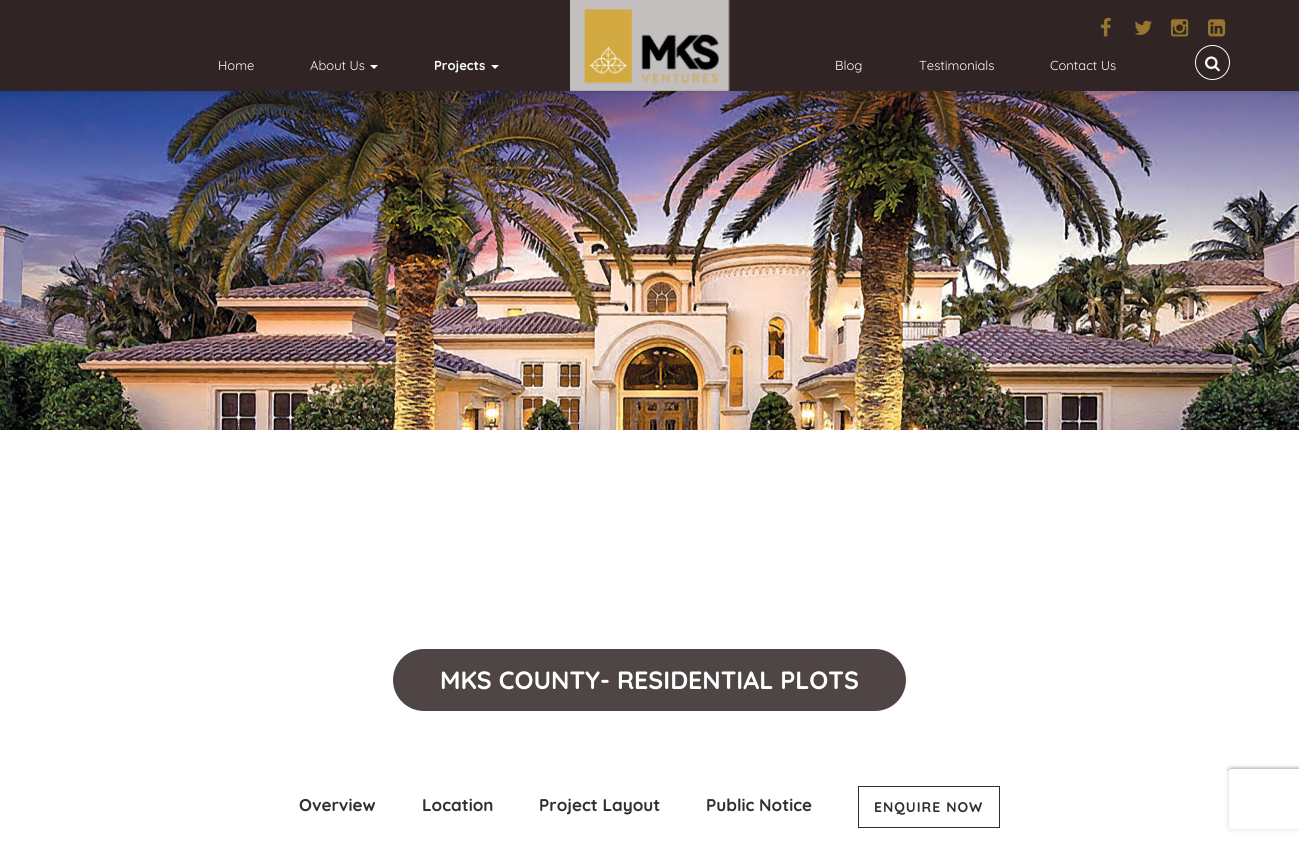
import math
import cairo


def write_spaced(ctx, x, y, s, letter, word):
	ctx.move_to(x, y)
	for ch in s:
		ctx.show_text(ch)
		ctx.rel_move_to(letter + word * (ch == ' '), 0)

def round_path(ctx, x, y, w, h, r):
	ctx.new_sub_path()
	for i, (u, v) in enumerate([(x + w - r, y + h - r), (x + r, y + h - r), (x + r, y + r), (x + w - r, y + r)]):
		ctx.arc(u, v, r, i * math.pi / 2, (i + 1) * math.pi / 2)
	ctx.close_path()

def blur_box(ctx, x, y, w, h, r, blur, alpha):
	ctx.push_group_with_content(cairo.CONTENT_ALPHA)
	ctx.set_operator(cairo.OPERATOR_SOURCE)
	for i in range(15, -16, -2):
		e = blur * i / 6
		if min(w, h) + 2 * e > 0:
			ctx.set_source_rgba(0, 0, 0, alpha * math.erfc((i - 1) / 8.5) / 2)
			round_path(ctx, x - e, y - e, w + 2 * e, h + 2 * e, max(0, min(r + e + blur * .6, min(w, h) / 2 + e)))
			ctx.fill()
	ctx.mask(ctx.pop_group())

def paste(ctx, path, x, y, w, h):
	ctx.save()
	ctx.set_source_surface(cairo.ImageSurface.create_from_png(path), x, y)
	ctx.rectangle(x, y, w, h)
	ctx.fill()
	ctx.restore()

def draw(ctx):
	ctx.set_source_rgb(1, 1, 1)
	ctx.paint()
	paste(ctx, 'media/7.png', 0, 91, 1299, 339)
	ctx.set_source_rgb(0, 0, 0)
	blur_box(ctx, 0, 0, 1299, 91, 0, 3.5, 0.17)
	ctx.set_source_rgb(0.188, 0.141, 0.141)
	ctx.rectangle(0, 0, 1299, 91)
	ctx.fill()
	paste(ctx, 'media/1.png', 570, 0, 160, 91)
	paste(ctx, 'media/2.png', 1101, 17, 10, 20)
	paste(ctx, 'media/3.png', 1134, 20, 18, 15)
	paste(ctx, 'media/4.png', 1171, 19, 18, 18)
	paste(ctx, 'media/5.png', 1208, 19, 18, 18)
	ctx.arc(1212.5, 62.5, 17, 0, 2 * math.pi)
	ctx.set_source_rgb(1, 1, 1)
	ctx.set_line_width(1)
	ctx.stroke()
	paste(ctx, 'media/6.png', 1205, 56, 15, 16)
	ctx.select_font_face('Quicksand')
	ctx.set_font_size(13)
	ctx.move_to(218, 70)
	ctx.show_text('Home')
	ctx.move_to(310, 70)
	ctx.show_text('About Us')
	ctx.new_path()
	ctx.move_to(370, 65)
	ctx.line_to(378, 65)
	ctx.line_to(374, 69)
	ctx.close_path()
	ctx.fill()
	ctx.select_font_face('Quicksand', cairo.FONT_SLANT_NORMAL, cairo.FONT_WEIGHT_BOLD)
	ctx.move_to(434, 70)
	ctx.show_text('Projects')
	ctx.new_path()
	ctx.move_to(491, 65)
	ctx.line_to(499, 65)
	ctx.line_to(495, 69)
	ctx.close_path()
	ctx.fill()
	ctx.select_font_face('Quicksand')
	for x, y, s in [
		(835, 70, 'Blog'),
		(919, 70, 'Testimonials'),
		(1050, 70, 'Contact Us'),
	]:
		ctx.move_to(x, y)
		ctx.show_text(s)
	ctx.set_source_rgb(0.31, 0.271, 0.271)
	round_path(ctx, 393, 649, 513, 62, 31)
	ctx.fill()
	ctx.select_font_face('Quicksand', cairo.FONT_SLANT_NORMAL, cairo.FONT_WEIGHT_BOLD)
	ctx.set_font_size(25)
	ctx.set_source_rgb(1, 1, 1)
	ctx.move_to(440, 689)
	ctx.show_text('MKS COUNTY- RESIDENTIAL PLOTS')
	ctx.save()
	ctx.set_fill_rule(cairo.FILL_RULE_EVEN_ODD)
	ctx.new_path()
	ctx.move_to(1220, 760)
	ctx.line_to(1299, 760)
	ctx.line_to(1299, 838)
	ctx.line_to(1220, 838)
	ctx.close_path()
	ctx.move_to(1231, 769)
	ctx.line_to(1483, 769)
	ctx.curve_to(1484, 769, 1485, 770, 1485, 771)
	ctx.line_to(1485, 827)
	ctx.curve_to(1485, 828, 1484, 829, 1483, 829)
	ctx.line_to(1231, 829)
	ctx.curve_to(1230, 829, 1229, 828, 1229, 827)
	ctx.line_to(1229, 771)
	ctx.curve_to(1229, 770, 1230, 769, 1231, 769)
	ctx.close_path()
	ctx.clip()
	ctx.set_source_rgb(0.502, 0.502, 0.502)
	blur_box(ctx, 1229, 769, 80, 60, 2, 2.5, 1)
	ctx.restore()
	ctx.set_source_rgba(1, 1, 1, 0.69)
	ctx.rectangle(1225, 771, 74, 62)
	ctx.fill()
	ctx.set_font_size(17)
	ctx.set_source_rgb(0.184, 0.184, 0.184)
	for x, y, s in [
		(299, 811, 'Overview'),
		(422, 811, 'Location'),
		(539, 811, 'Project Layout'),
		(706, 811, 'Public Notice'),
	]:
		ctx.move_to(x, y)
		ctx.show_text(s)
	ctx.rectangle(858.5, 786.5, 141, 41)
	ctx.stroke()
	ctx.set_font_size(14)
	write_spaced(ctx, 874, 812, 'ENQUIRE NOW', 1, 0)


surface = cairo.ImageSurface(cairo.FORMAT_RGB24, 1299, 843)
ctx = cairo.Context(surface)
options = cairo.FontOptions()
options.set_hint_metrics(cairo.HINT_METRICS_OFF)
options.set_hint_style(cairo.HINT_STYLE_NONE)
ctx.set_font_options(options)
ctx.set_miter_limit(4)
draw(ctx)
surface.write_to_png('image.png')
